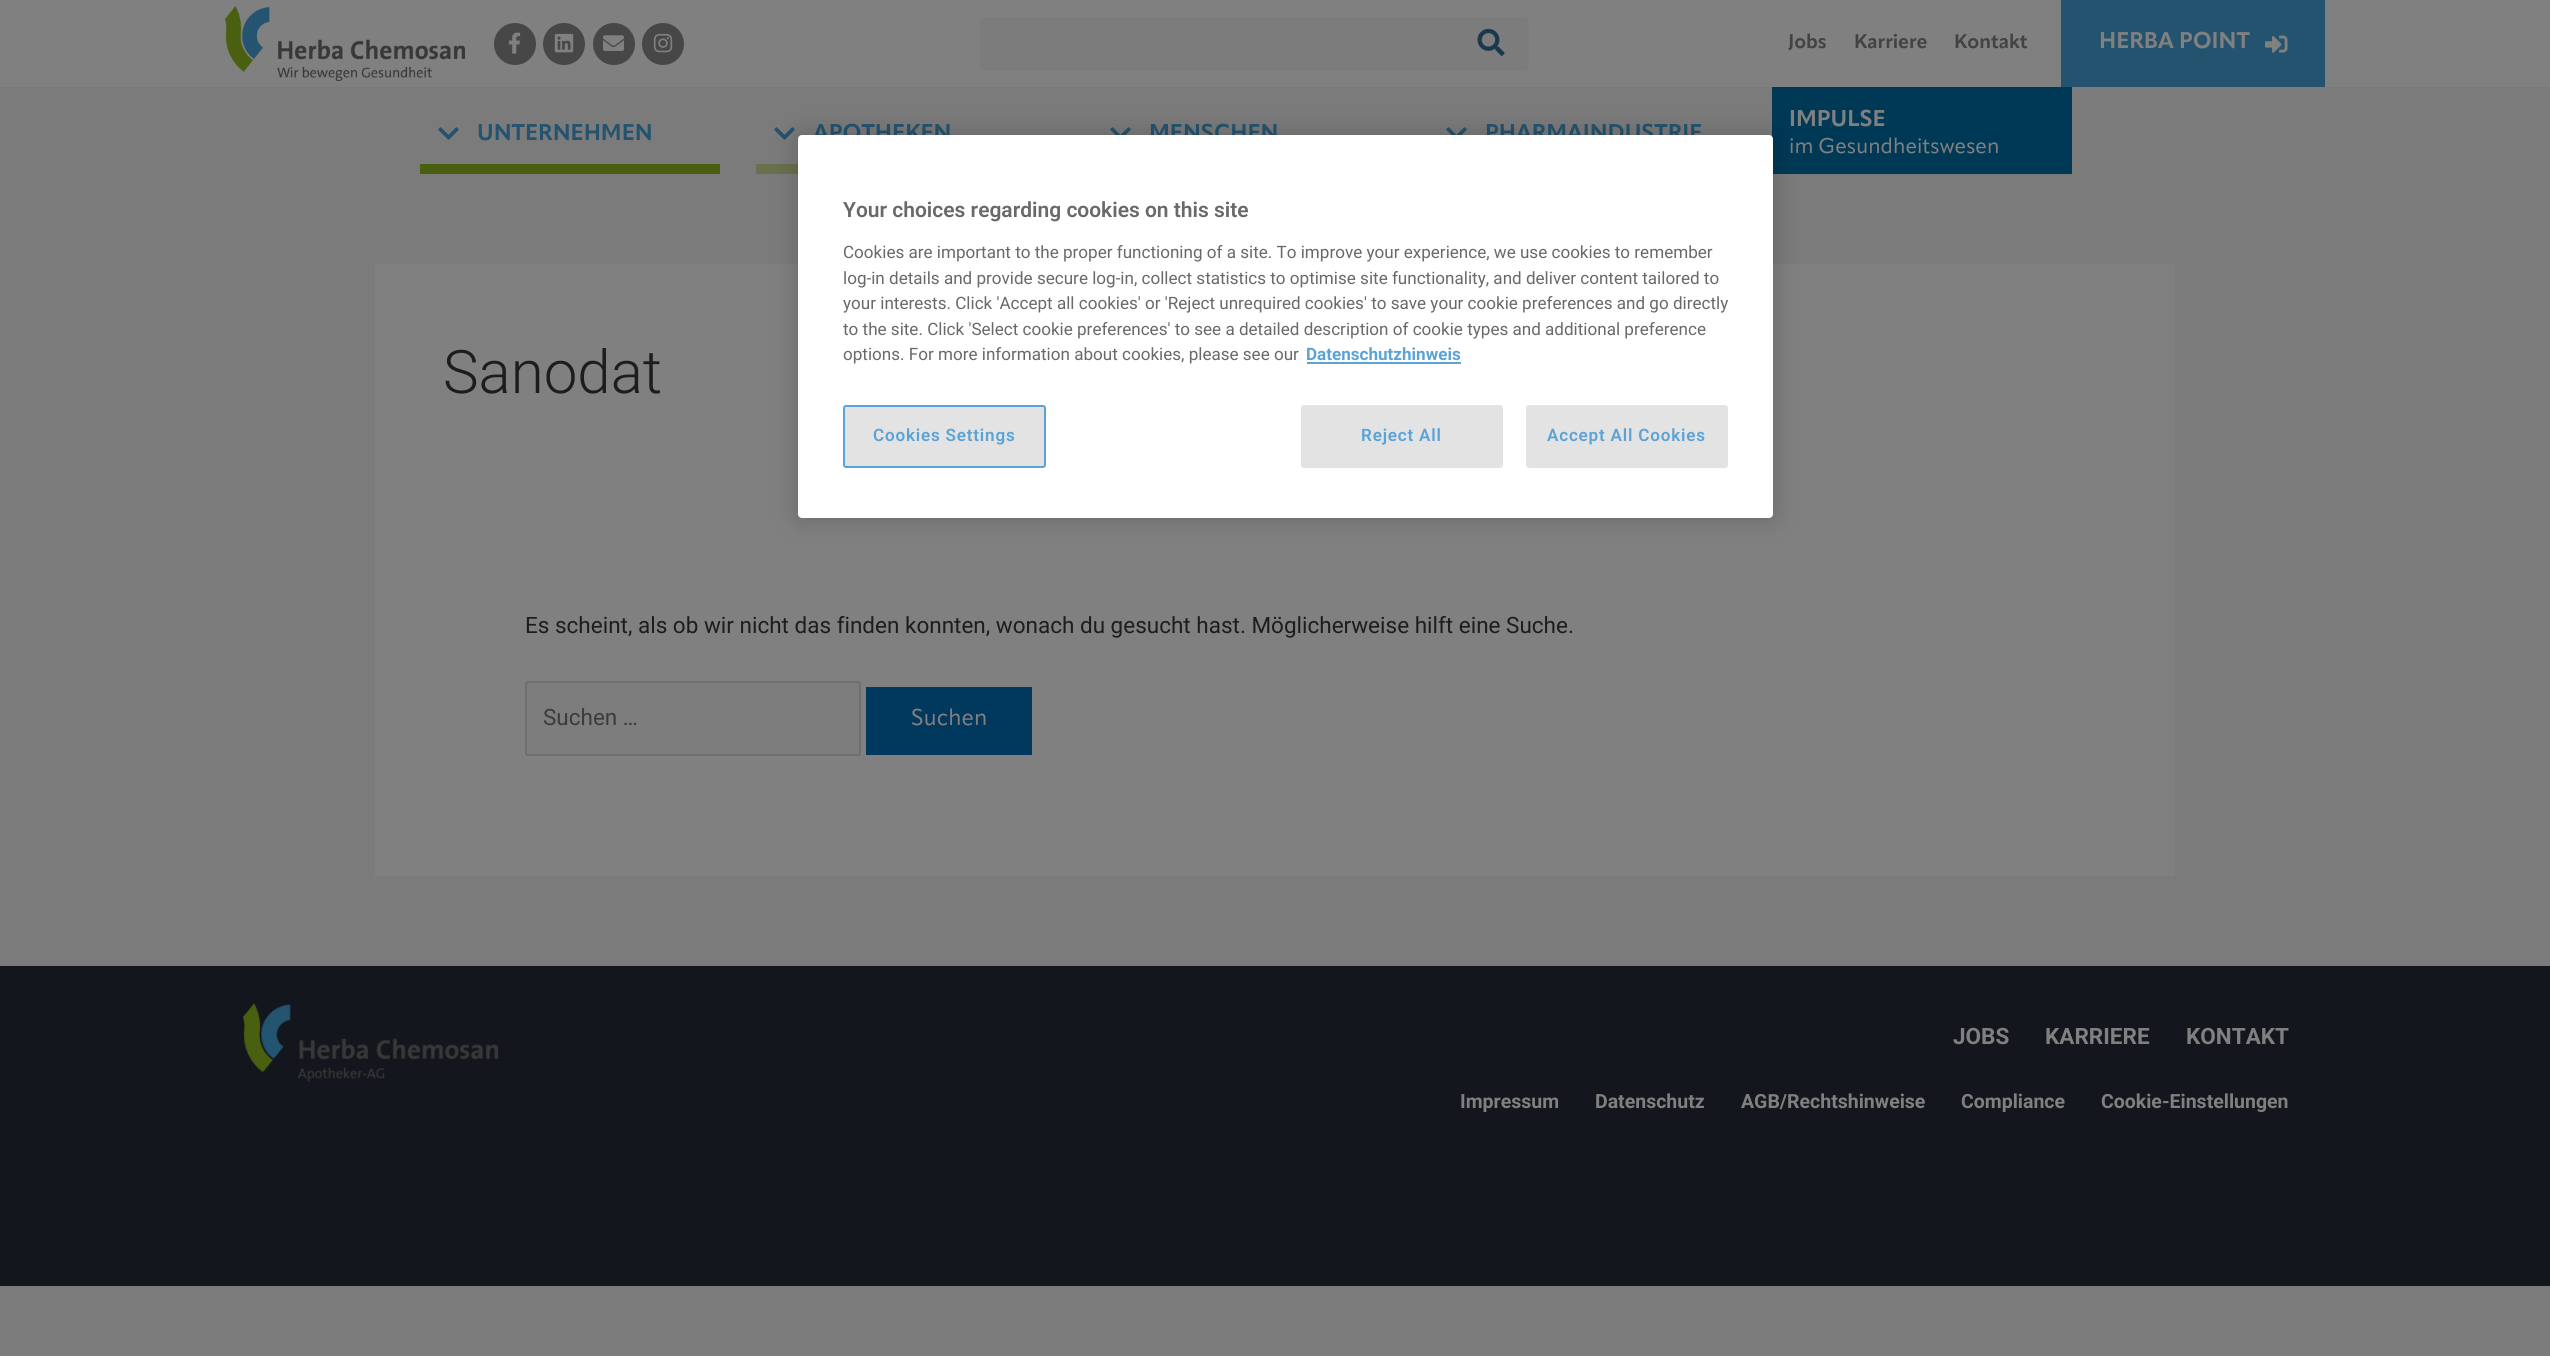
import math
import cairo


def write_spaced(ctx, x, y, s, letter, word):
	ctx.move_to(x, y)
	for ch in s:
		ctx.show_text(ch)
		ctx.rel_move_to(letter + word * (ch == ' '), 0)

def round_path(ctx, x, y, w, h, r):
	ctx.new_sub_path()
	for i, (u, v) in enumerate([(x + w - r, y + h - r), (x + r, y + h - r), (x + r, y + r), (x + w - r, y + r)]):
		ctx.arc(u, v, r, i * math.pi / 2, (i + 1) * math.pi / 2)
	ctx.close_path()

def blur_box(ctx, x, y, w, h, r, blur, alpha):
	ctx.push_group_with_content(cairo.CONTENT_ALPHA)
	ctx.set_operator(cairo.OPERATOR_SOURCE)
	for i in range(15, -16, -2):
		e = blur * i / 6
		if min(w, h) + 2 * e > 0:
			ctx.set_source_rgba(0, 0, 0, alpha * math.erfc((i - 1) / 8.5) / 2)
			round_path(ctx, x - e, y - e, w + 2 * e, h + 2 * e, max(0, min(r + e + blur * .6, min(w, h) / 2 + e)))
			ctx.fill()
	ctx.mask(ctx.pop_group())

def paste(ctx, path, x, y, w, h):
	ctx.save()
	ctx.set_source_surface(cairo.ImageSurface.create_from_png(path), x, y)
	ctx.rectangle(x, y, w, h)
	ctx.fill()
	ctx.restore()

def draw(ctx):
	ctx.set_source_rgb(0.482, 0.482, 0.482)
	ctx.paint()
	ctx.set_source_rgb(0.502, 0.502, 0.502)
	ctx.rectangle(0, 0, 2550, 87)
	ctx.fill()
	paste(ctx, 'media/1.png', 225, 6, 240, 75)
	ctx.set_source_rgb(0.278, 0.278, 0.278)
	ctx.arc(515, 44, 21, 0, 2 * math.pi)
	ctx.fill()
	paste(ctx, 'media/2.png', 508, 32, 13, 22)
	ctx.arc(564, 44, 21, 0, 2 * math.pi)
	ctx.fill()
	paste(ctx, 'media/3.png', 554, 33, 20, 20)
	ctx.arc(614, 44, 21, 0, 2 * math.pi)
	ctx.fill()
	paste(ctx, 'media/4.png', 603, 35, 21, 16)
	ctx.arc(663, 44, 21, 0, 2 * math.pi)
	ctx.fill()
	paste(ctx, 'media/5.png', 653, 33, 20, 20)
	ctx.set_source_rgb(0.486, 0.486, 0.486)
	round_path(ctx, 980, 17, 549, 54, 6)
	ctx.fill()
	paste(ctx, 'media/6.png', 1477, 28, 28, 28)
	ctx.select_font_face('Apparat', cairo.FONT_SLANT_NORMAL, cairo.FONT_WEIGHT_BOLD)
	ctx.set_font_size(19.5)
	ctx.set_source_rgb(0.263, 0.263, 0.263)
	for x, y, s in [
		(1788, 48, 'Jobs'),
		(1854, 48, 'Karriere'),
		(1954, 48, 'Kontakt'),
	]:
		ctx.move_to(x, y)
		ctx.show_text(s)
	ctx.set_source_rgb(0.141, 0.325, 0.435)
	ctx.rectangle(2061, 0, 264, 87)
	ctx.fill()
	ctx.set_font_size(22.5)
	ctx.set_source_rgb(0.502, 0.502, 0.502)
	ctx.move_to(2099, 48)
	ctx.show_text('HERBA POINT')
	paste(ctx, 'media/7.png', 2265, 35, 23, 18)
	paste(ctx, 'media/8.png', 438, 127, 21, 13)
	ctx.set_source_rgb(0.141, 0.325, 0.435)
	ctx.move_to(477, 140)
	ctx.show_text('UNTERNEHMEN')
	ctx.set_source_rgb(0.286, 0.373, 0.059)
	ctx.rectangle(420, 164, 300, 10)
	ctx.fill()
	paste(ctx, 'media/8.png', 774, 127, 21, 13)
	ctx.set_source_rgb(0.141, 0.325, 0.435)
	ctx.move_to(813, 140)
	ctx.show_text('APOTHEKEN')
	ctx.set_source_rgb(0.408, 0.439, 0.306)
	ctx.rectangle(756, 164, 42, 10)
	ctx.fill()
	paste(ctx, 'media/9.png', 1110, 127, 21, 8)
	ctx.set_source_rgb(0.141, 0.325, 0.435)
	ctx.move_to(1149, 140)
	ctx.show_text('MENSCHEN')
	paste(ctx, 'media/9.png', 1446, 127, 21, 8)
	ctx.move_to(1485, 140)
	ctx.show_text('PHARMAINDUSTRIE')
	ctx.set_source_rgb(0, 0.224, 0.337)
	ctx.rectangle(1772, 87, 300, 87)
	ctx.fill()
	ctx.set_source_rgb(0.502, 0.502, 0.502)
	ctx.move_to(1789, 126)
	ctx.show_text('IMPULSE')
	ctx.select_font_face('Apparat')
	ctx.set_font_size(21)
	ctx.move_to(1789, 153)
	ctx.show_text('im Gesundheitswesen')
	ctx.rectangle(375, 264, 1800, 612)
	ctx.fill()
	ctx.select_font_face('Roboto Light')
	ctx.set_font_size(60)
	ctx.set_source_rgb(0.114, 0.114, 0.114)
	ctx.move_to(443, 393)
	ctx.show_text('Sanodat')
	ctx.select_font_face('Roboto')
	ctx.set_font_size(22.5)
	ctx.move_to(525, 633)
	ctx.show_text('Es scheint, als ob wir nicht das finden konnten, wonach du gesucht hast. Möglicherweise hilft eine Suche.')
	ctx.set_source_rgb(0.49, 0.49, 0.49)
	round_path(ctx, 526, 682, 334, 73, 2)
	ctx.fill_preserve()
	ctx.set_source_rgb(0.435, 0.435, 0.435)
	ctx.stroke()
	ctx.set_source_rgb(0.231, 0.231, 0.231)
	ctx.move_to(543, 725)
	ctx.show_text('Suchen …')
	ctx.set_source_rgb(0.004, 0.22, 0.365)
	ctx.rectangle(866, 687, 166, 68)
	ctx.fill()
	ctx.select_font_face('Apparat')
	ctx.set_source_rgb(0.502, 0.502, 0.502)
	ctx.move_to(911, 725)
	ctx.show_text('Suchen')
	ctx.set_source_rgb(0.075, 0.086, 0.114)
	ctx.rectangle(0, 966, 2550, 320)
	ctx.fill()
	paste(ctx, 'media/10.png', 243, 1003, 255, 79)
	ctx.select_font_face('Roboto', cairo.FONT_SLANT_NORMAL, cairo.FONT_WEIGHT_BOLD)
	ctx.set_source_rgb(0.502, 0.502, 0.502)
	for x, y, s in [
		(1953, 1044, 'JOBS'),
		(2045, 1044, 'KARRIERE'),
		(2186, 1044, 'KONTAKT'),
	]:
		ctx.move_to(x, y)
		ctx.show_text(s)
	ctx.set_font_size(19.5)
	for x, y, s in [
		(1460, 1108, 'Impressum'),
		(1595, 1108, 'Datenschutz'),
		(1741, 1108, 'AGB/Rechtshinweise'),
		(1961, 1108, 'Compliance'),
		(2101, 1108, 'Cookie-Einstellungen'),
	]:
		ctx.move_to(x, y)
		ctx.show_text(s)
	ctx.set_source_rgb(0, 0, 0)
	blur_box(ctx, 798, 135, 975, 383, 4, 13.5, 0.2)
	ctx.set_source_rgb(1, 1, 1)
	round_path(ctx, 798, 135, 975, 383, 4)
	ctx.fill()
	ctx.select_font_face('Roboto SemiBold')
	ctx.set_font_size(21)
	ctx.set_source_rgb(0.412, 0.412, 0.412)
	ctx.move_to(843, 217)
	ctx.show_text('Your choices regarding cookies on this site')
	ctx.select_font_face('Roboto')
	ctx.set_font_size(17.07)
	for x, y, s in [
		(843, 258, 'Cookies are important to the proper functioning of a site. To improve your experience, we use cookies to remember'),
		(843, 284, 'log-in details and provide secure log-in, collect statistics to optimise site functionality, and deliver content tailored to'),
		(843, 309, 'your interests. Click \'Accept all cookies\' or \'Reject unrequired cookies\' to save your cookie preferences and go directly'),
		(843, 335, 'to the site. Click \'Select cookie preferences\' to see a detailed description of cookie types and additional preference'),
		(843, 360, 'options. For more information about cookies, please see our'),
	]:
		ctx.move_to(x, y)
		ctx.show_text(s)
	ctx.select_font_face('Roboto', cairo.FONT_SLANT_NORMAL, cairo.FONT_WEIGHT_BOLD)
	ctx.set_source_rgb(0.357, 0.635, 0.839)
	ctx.move_to(1306, 360)
	ctx.show_text('Datenschutzhinweis')
	ctx.rectangle(1307, 362, 154, 2)
	ctx.fill()
	ctx.set_source_rgb(0.89, 0.89, 0.89)
	round_path(ctx, 844, 406, 201, 61, 2)
	ctx.fill_preserve()
	ctx.set_source_rgb(0.357, 0.635, 0.839)
	ctx.stroke()
	ctx.select_font_face('Roboto SemiBold')
	write_spaced(ctx, 873, 441, 'Cookies Settings', 0.8, 0)
	ctx.set_source_rgb(0.89, 0.89, 0.89)
	round_path(ctx, 1302, 406, 200, 61, 2)
	ctx.fill_preserve()
	ctx.stroke()
	ctx.set_source_rgb(0.357, 0.635, 0.839)
	write_spaced(ctx, 1361, 441, 'Reject All', 0.8, 0)
	ctx.set_source_rgb(0.89, 0.89, 0.89)
	round_path(ctx, 1527, 406, 200, 61, 2)
	ctx.fill_preserve()
	ctx.stroke()
	ctx.set_source_rgb(0.357, 0.635, 0.839)
	write_spaced(ctx, 1547, 441, 'Accept All Cookies', 0.8, 0)


surface = cairo.ImageSurface(cairo.FORMAT_RGB24, 2550, 1356)
ctx = cairo.Context(surface)
options = cairo.FontOptions()
options.set_hint_metrics(cairo.HINT_METRICS_OFF)
options.set_hint_style(cairo.HINT_STYLE_NONE)
ctx.set_font_options(options)
ctx.set_miter_limit(4)
draw(ctx)
surface.write_to_png('image.png')
